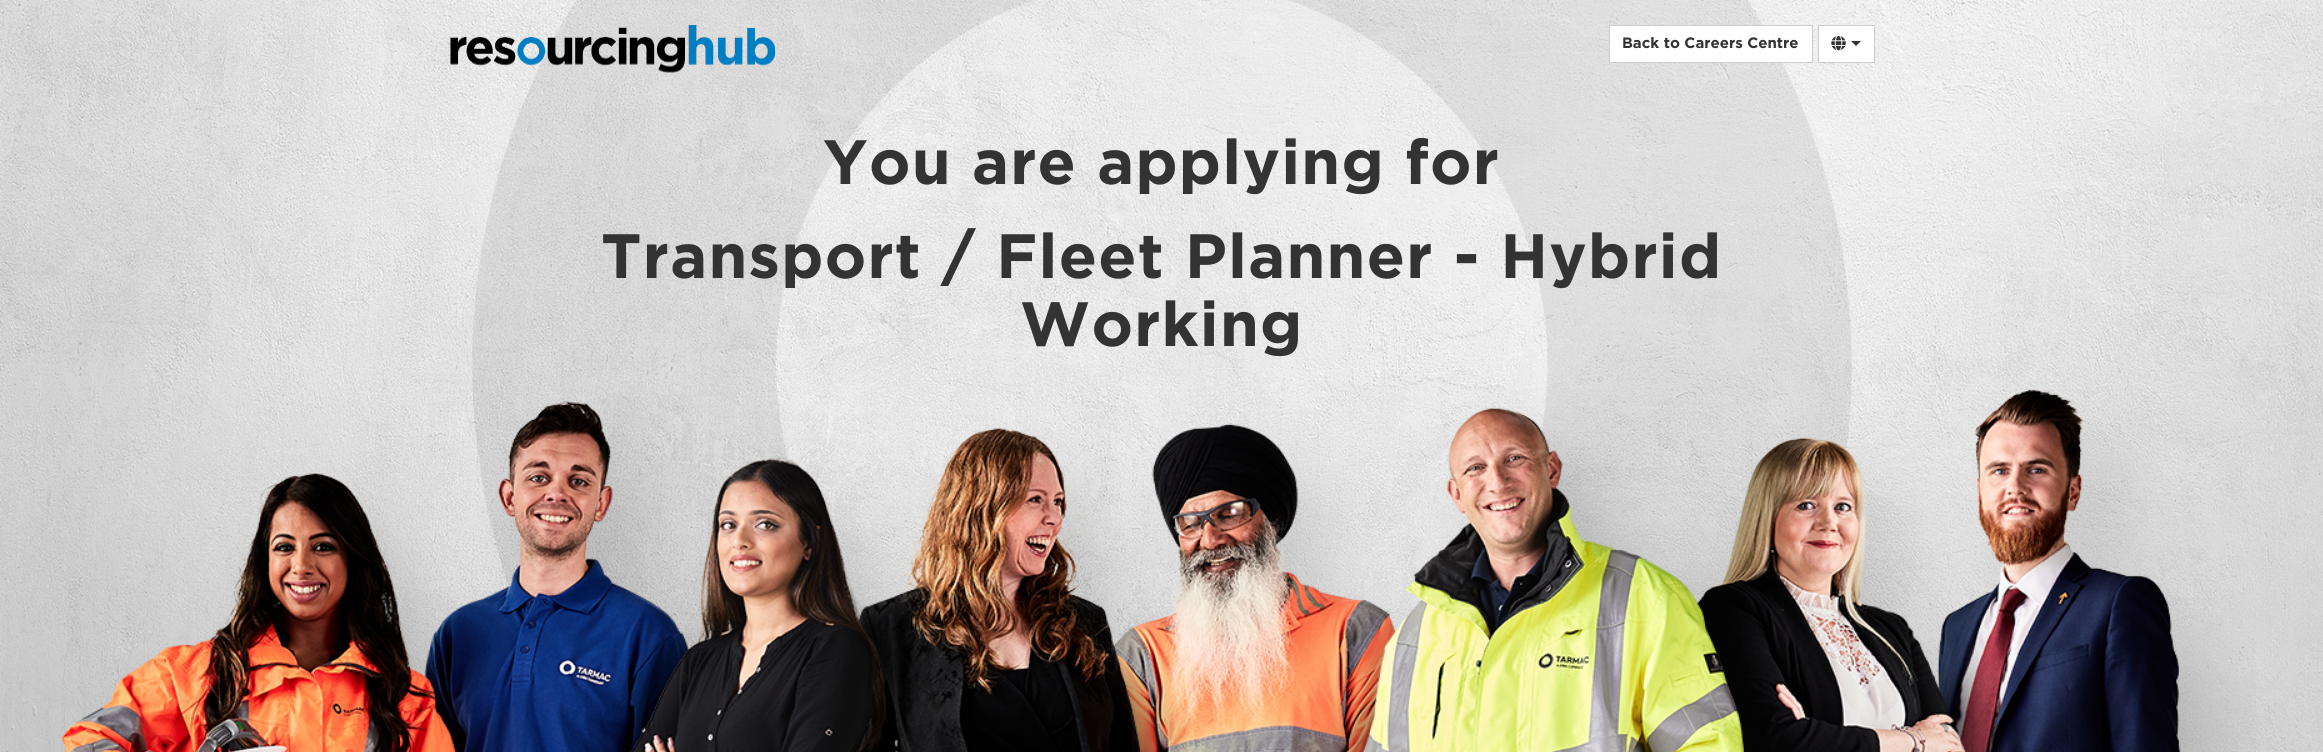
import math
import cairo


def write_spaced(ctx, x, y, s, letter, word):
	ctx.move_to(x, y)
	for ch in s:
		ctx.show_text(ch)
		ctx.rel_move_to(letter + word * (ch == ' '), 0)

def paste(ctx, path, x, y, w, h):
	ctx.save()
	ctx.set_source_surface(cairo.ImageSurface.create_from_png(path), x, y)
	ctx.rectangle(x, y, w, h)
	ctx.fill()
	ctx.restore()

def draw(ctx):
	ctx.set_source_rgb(1, 1, 1)
	ctx.paint()
	paste(ctx, 'media/1.png', 0, 0, 2323, 752)
	paste(ctx, 'media/2.png', 450, 25, 325, 48)
	ctx.set_source_rgb(1, 1, 1)
	ctx.rectangle(1609.5, 25.5, 203, 37)
	ctx.fill_preserve()
	ctx.set_source_rgb(0.8, 0.8, 0.8)
	ctx.set_line_width(1)
	ctx.stroke()
	ctx.select_font_face('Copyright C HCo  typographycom')
	ctx.set_font_size(15)
	ctx.set_source_rgb(0.2, 0.2, 0.2)
	ctx.move_to(1622, 48)
	ctx.show_text('Back to Careers Centre')
	ctx.set_source_rgb(1, 1, 1)
	ctx.rectangle(1818.5, 25.5, 56, 37)
	ctx.fill_preserve()
	ctx.set_source_rgb(0.8, 0.8, 0.8)
	ctx.stroke()
	paste(ctx, 'media/3.png', 1831, 35, 15, 16)
	ctx.set_source_rgb(0.2, 0.2, 0.2)
	ctx.new_path()
	ctx.move_to(1851, 41)
	ctx.line_to(1861, 41)
	ctx.line_to(1856, 46)
	ctx.close_path()
	ctx.fill()
	paste(ctx, 'media/4.png', 61, 389, 2195, 363)
	ctx.set_font_size(62.5)
	for x, y, s in [
		(823, 184, 'You are applying for'),
		(601, 278, 'Transport / Fleet Planner - Hybrid'),
		(1020, 346, 'Working'),
	]:
		write_spaced(ctx, x, y, s, 1.25, 0)


surface = cairo.ImageSurface(cairo.FORMAT_RGB24, 2323, 752)
ctx = cairo.Context(surface)
options = cairo.FontOptions()
options.set_hint_metrics(cairo.HINT_METRICS_OFF)
options.set_hint_style(cairo.HINT_STYLE_NONE)
ctx.set_font_options(options)
ctx.set_miter_limit(4)
draw(ctx)
surface.write_to_png('image.png')
